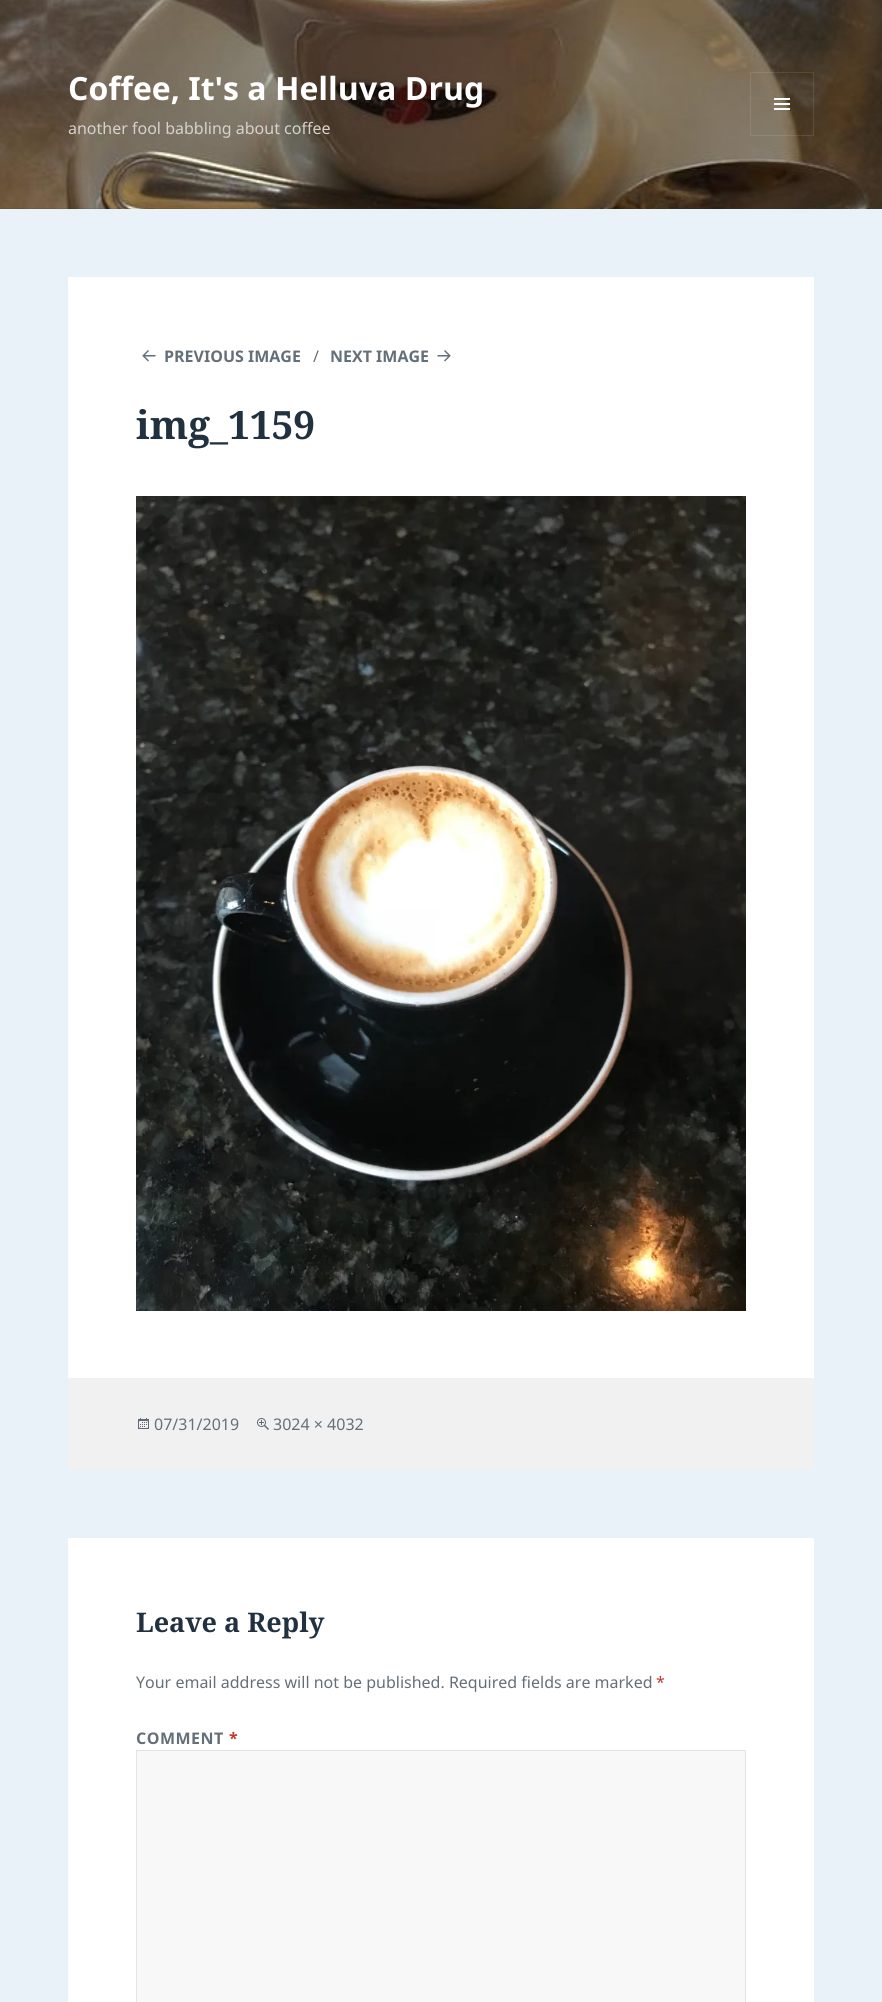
import math
import cairo


def write_spaced(ctx, x, y, s, letter, word):
	ctx.move_to(x, y)
	for ch in s:
		ctx.show_text(ch)
		ctx.rel_move_to(letter + word * (ch == ' '), 0)

def paste(ctx, path, x, y, w, h):
	ctx.save()
	ctx.set_source_surface(cairo.ImageSurface.create_from_png(path), x, y)
	ctx.rectangle(x, y, w, h)
	ctx.fill()
	ctx.restore()

def draw(ctx):
	ctx.set_source_rgb(0.914, 0.949, 0.976)
	ctx.paint()
	paste(ctx, 'media/1.png', 0, 0, 882, 209)
	ctx.set_source_rgba(0.133, 0.192, 0.247, 0.1)
	ctx.rectangle(0, 208, 882, 1)
	ctx.fill()
	ctx.select_font_face('Noto Sans', cairo.FONT_SLANT_NORMAL, cairo.FONT_WEIGHT_BOLD)
	ctx.set_font_size(32)
	ctx.set_source_rgb(1, 1, 1)
	ctx.move_to(68, 100)
	ctx.show_text('Coffee, It\'s a Helluva Drug')
	ctx.rectangle(750.5, 72.5, 63, 63)
	ctx.set_source_rgba(1, 1, 1, 0.1)
	ctx.set_line_width(1)
	ctx.stroke()
	paste(ctx, 'media/2.png', 774, 98, 16, 12)
	ctx.select_font_face('Noto Sans')
	ctx.set_font_size(16)
	ctx.set_source_rgb(0.835, 0.824, 0.804)
	ctx.move_to(68, 134)
	ctx.show_text('another fool babbling about coffee')
	ctx.set_source_rgb(1, 1, 1)
	ctx.rectangle(68, 277, 746, 1101)
	ctx.fill()
	paste(ctx, 'media/3.png', 142, 350, 14, 12)
	ctx.select_font_face('Noto Sans', cairo.FONT_SLANT_NORMAL, cairo.FONT_WEIGHT_BOLD)
	ctx.set_source_rgb(0.392, 0.435, 0.475)
	ctx.move_to(164, 362)
	ctx.show_text('PREVIOUS IMAGE')
	ctx.select_font_face('Noto Sans')
	ctx.move_to(313, 362)
	ctx.show_text('∕')
	ctx.select_font_face('Noto Sans', cairo.FONT_SLANT_NORMAL, cairo.FONT_WEIGHT_BOLD)
	ctx.move_to(330, 362)
	ctx.show_text('NEXT IMAGE')
	paste(ctx, 'media/4.png', 437, 350, 14, 12)
	ctx.select_font_face('Noto Serif', cairo.FONT_SLANT_NORMAL, cairo.FONT_WEIGHT_BOLD)
	ctx.set_font_size(39)
	ctx.set_source_rgb(0.133, 0.192, 0.247)
	ctx.move_to(136, 439)
	ctx.show_text('img_1159')
	paste(ctx, 'media/5.png', 136, 496, 610, 815)
	ctx.set_source_rgb(0.945, 0.945, 0.945)
	ctx.rectangle(68, 1378, 746, 92)
	ctx.fill()
	paste(ctx, 'media/6.png', 138, 1418, 11, 11)
	ctx.select_font_face('Noto Sans')
	ctx.set_font_size(16)
	ctx.set_source_rgb(0.392, 0.435, 0.475)
	ctx.move_to(154, 1430)
	ctx.show_text('07/31/2019')
	paste(ctx, 'media/7.png', 257, 1418, 12, 12)
	ctx.move_to(273, 1430)
	ctx.show_text('3024 × 4032')
	ctx.set_source_rgb(1, 1, 1)
	ctx.rectangle(68, 1538, 746, 464)
	ctx.fill()
	ctx.select_font_face('Noto Serif', cairo.FONT_SLANT_NORMAL, cairo.FONT_WEIGHT_BOLD)
	ctx.set_font_size(27)
	ctx.set_source_rgb(0.133, 0.192, 0.247)
	ctx.move_to(136, 1632)
	ctx.show_text('Leave a Reply')
	ctx.select_font_face('Noto Sans')
	ctx.set_font_size(16)
	ctx.set_source_rgb(0.392, 0.435, 0.475)
	ctx.move_to(136, 1688)
	ctx.show_text('Your email address will not be published. Required fields are marked')
	ctx.set_source_rgb(0.753, 0.224, 0.169)
	ctx.move_to(656, 1688)
	ctx.show_text('*')
	ctx.select_font_face('Noto Sans', cairo.FONT_SLANT_NORMAL, cairo.FONT_WEIGHT_BOLD)
	ctx.set_source_rgb(0.392, 0.435, 0.475)
	write_spaced(ctx, 136, 1744, 'COMMENT', 0.5, 0)
	ctx.set_source_rgb(0.753, 0.224, 0.169)
	write_spaced(ctx, 229, 1744, '*', 0.5, 0)
	ctx.set_source_rgb(0.969, 0.969, 0.969)
	ctx.rectangle(136.5, 1750.5, 609, 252)
	ctx.fill_preserve()
	ctx.set_source_rgb(0.886, 0.89, 0.898)
	ctx.stroke()


surface = cairo.ImageSurface(cairo.FORMAT_RGB24, 882, 2002)
ctx = cairo.Context(surface)
options = cairo.FontOptions()
options.set_hint_metrics(cairo.HINT_METRICS_OFF)
options.set_hint_style(cairo.HINT_STYLE_NONE)
ctx.set_font_options(options)
ctx.set_miter_limit(4)
draw(ctx)
surface.write_to_png('image.png')
